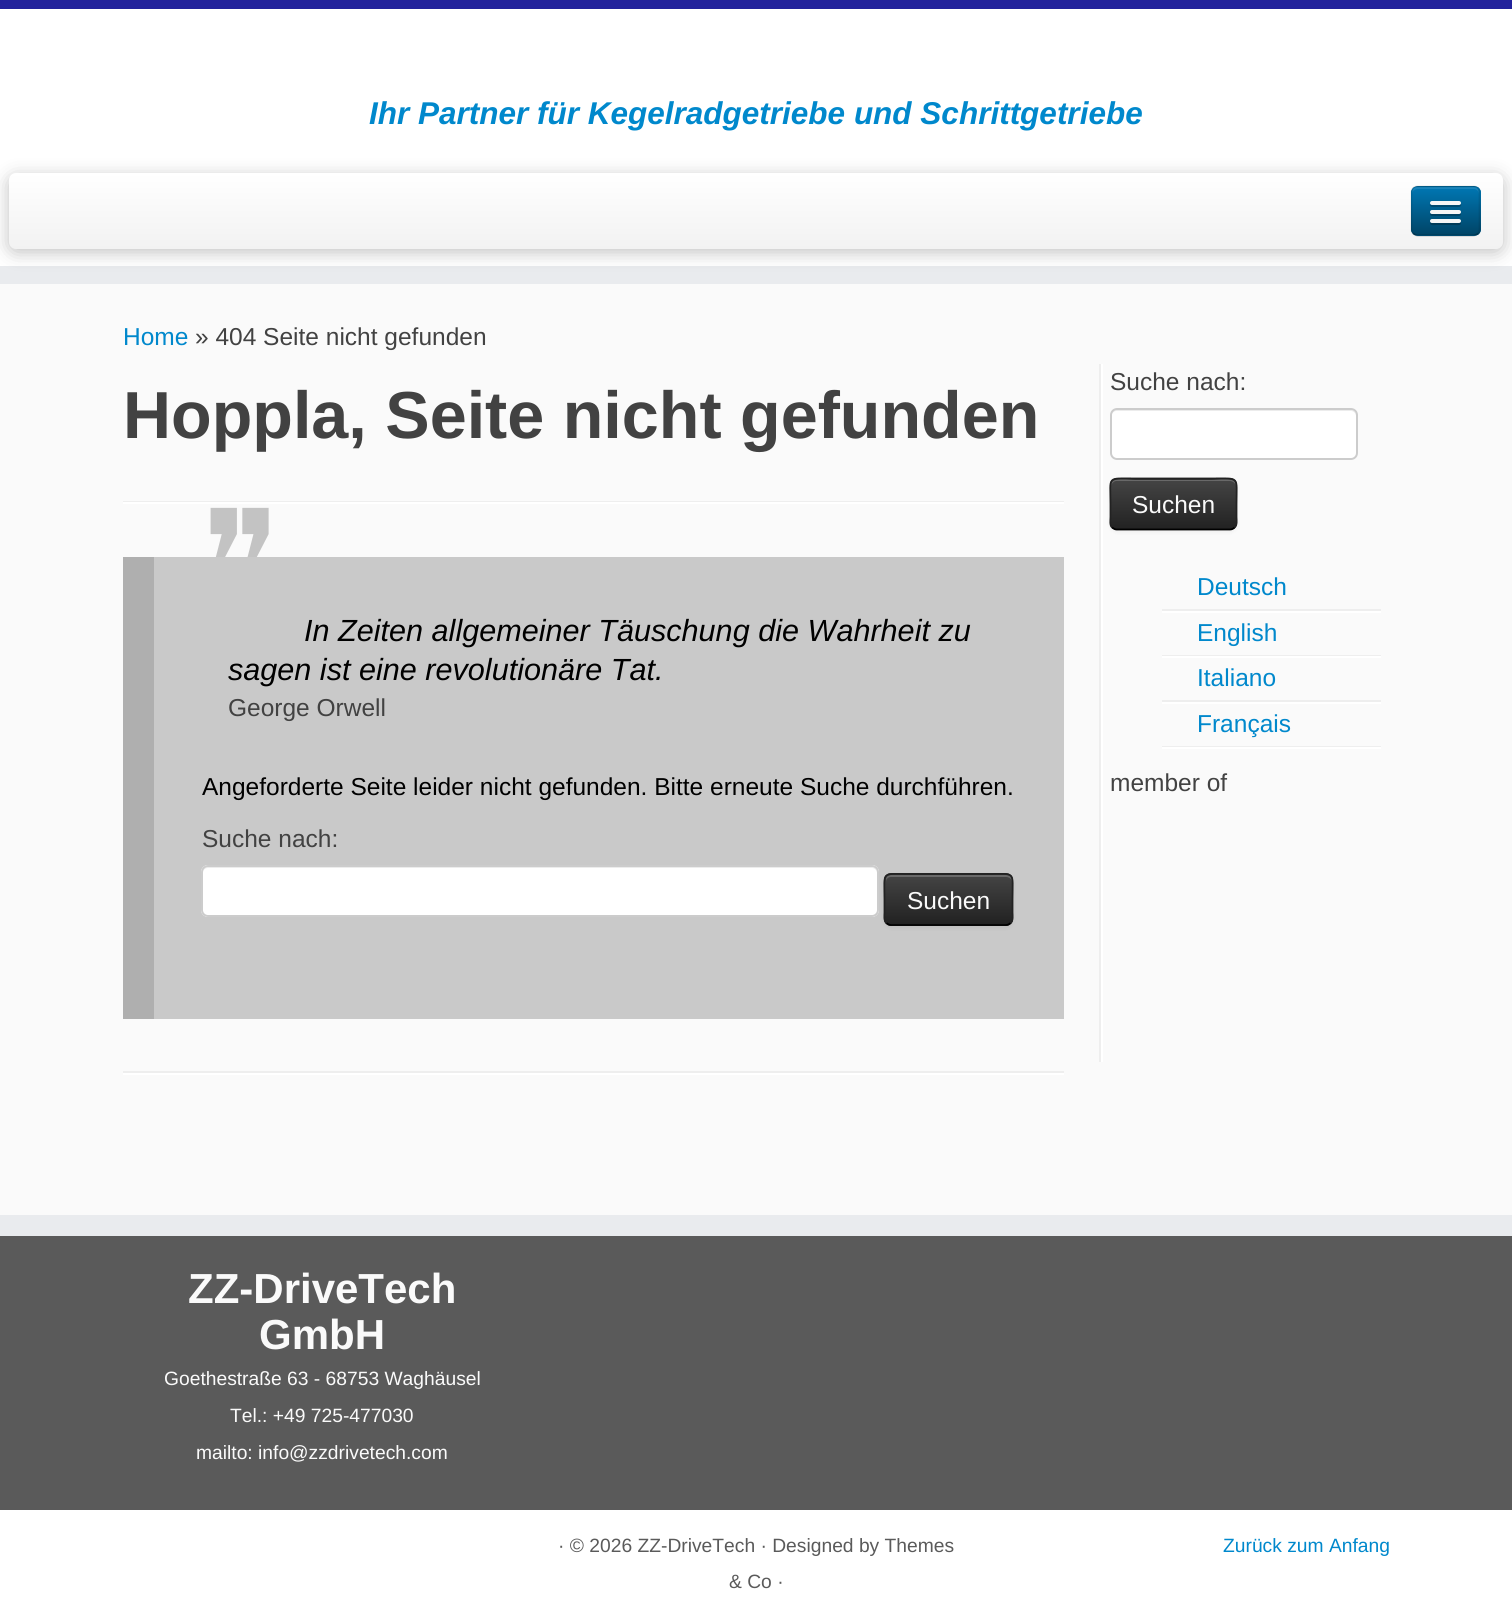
import math
import cairo


def round_path(ctx, x, y, w, h, r):
	ctx.new_sub_path()
	for i, (u, v) in enumerate([(x + w - r, y + h - r), (x + r, y + h - r), (x + r, y + r), (x + w - r, y + r)]):
		ctx.arc(u, v, r, i * math.pi / 2, (i + 1) * math.pi / 2)
	ctx.close_path()

def blur_box(ctx, x, y, w, h, r, blur, alpha):
	ctx.push_group_with_content(cairo.CONTENT_ALPHA)
	ctx.set_operator(cairo.OPERATOR_SOURCE)
	for i in range(15, -16, -2):
		e = blur * i / 6
		if min(w, h) + 2 * e > 0:
			ctx.set_source_rgba(0, 0, 0, alpha * math.erfc((i - 1) / 8.5) / 2)
			round_path(ctx, x - e, y - e, w + 2 * e, h + 2 * e, max(0, min(r + e + blur * .6, min(w, h) / 2 + e)))
			ctx.fill()
	ctx.mask(ctx.pop_group())

def draw(ctx):
	ctx.set_source_rgb(0.98, 0.98, 0.98)
	ctx.paint()
	ctx.set_source_rgb(1, 1, 1)
	ctx.rectangle(0, 9, 1512, 257)
	ctx.fill()
	ctx.set_source_rgb(0.133, 0.133, 0.612)
	ctx.rectangle(0, 0, 1512, 9)
	ctx.fill()
	ctx.set_source_rgb(0.914, 0.918, 0.933)
	ctx.rectangle(0, 266, 1512, 18)
	ctx.fill()
	ctx.select_font_face('Liberation Sans', cairo.FONT_SLANT_ITALIC, cairo.FONT_WEIGHT_BOLD)
	ctx.set_font_size(31.5)
	ctx.set_source_rgb(0, 0.533, 0.8)
	ctx.move_to(369, 124)
	ctx.show_text('Ihr Partner für Kegelradgetriebe und Schrittgetriebe')
	ctx.set_source_rgb(0, 0, 0)
	blur_box(ctx, 9, 177, 1494, 75, 7, 9, 0.25)
	gradient = cairo.LinearGradient(756, 173, 756, 249)
	gradient.add_color_stop_rgba(0, 1, 1, 1, 1)
	gradient.add_color_stop_rgba(1, 0.949, 0.949, 0.949, 1)
	ctx.set_source(gradient)
	round_path(ctx, 9, 173, 1494, 76, 7)
	ctx.fill()
	ctx.set_source_rgb(0, 0.388, 0.58)
	round_path(ctx, 1411, 186, 70, 50, 7)
	ctx.fill()
	ctx.save()
	round_path(ctx, 1411, 186, 70, 50, 7)
	ctx.clip()
	gradient = cairo.LinearGradient(1446, 187, 1446, 235)
	gradient.add_color_stop_rgba(0, 0, 0.467, 0.702, 1)
	gradient.add_color_stop_rgba(1, 0, 0.267, 0.4, 1)
	ctx.set_source(gradient)
	ctx.rectangle(1411, 187, 70, 48)
	ctx.fill()
	ctx.restore()
	ctx.set_source_rgba(1, 1, 1, 0.1)
	ctx.new_path()
	ctx.move_to(1418, 189)
	ctx.line_to(1474, 189)
	ctx.curve_to(1476, 189, 1479, 191, 1479, 194)
	ctx.curve_to(1479, 185, 1472, 187, 1464, 187)
	ctx.line_to(1426, 187)
	ctx.curve_to(1419, 187, 1412, 185, 1412, 194)
	ctx.curve_to(1412, 191, 1415, 189, 1418, 189)
	ctx.close_path()
	ctx.fill()
	ctx.new_path()
	ctx.move_to(1478, 233.5)
	ctx.curve_to(1476.5, 234.5, 1475, 235.5, 1473.5, 235.5)
	ctx.line_to(1417.5, 235.5)
	ctx.curve_to(1416, 235.5, 1414.5, 234.5, 1413, 233.5)
	ctx.set_source_rgba(0, 0, 0, 0.25)
	ctx.set_line_width(1.8)
	ctx.stroke()
	ctx.new_path()
	ctx.move_to(1413, 233.5)
	ctx.curve_to(1412, 232.5, 1411.5, 231, 1411.5, 229)
	ctx.line_to(1411.5, 192.5)
	ctx.curve_to(1411.5, 191, 1412, 189.5, 1413, 188)
	ctx.curve_to(1414.5, 187, 1416, 186.5, 1417.5, 186.5)
	ctx.line_to(1473.5, 186.5)
	ctx.curve_to(1475, 186.5, 1476.5, 187, 1478, 188)
	ctx.curve_to(1479, 189.5, 1479.5, 191, 1479.5, 192.5)
	ctx.line_to(1479.5, 229)
	ctx.curve_to(1479.5, 231, 1479, 232.5, 1478, 233.5)
	ctx.set_source_rgba(0, 0, 0, 0.1)
	ctx.stroke()
	ctx.set_source_rgba(0, 0, 0, 0.25)
	ctx.new_path()
	ctx.move_to(1430, 204)
	ctx.curve_to(1428.5, 208, 1435.5, 207, 1436.5, 207)
	ctx.line_to(1454.5, 207)
	ctx.curve_to(1455.5, 207, 1462.5, 208, 1461, 204)
	ctx.line_to(1459.5, 204.5)
	ctx.line_to(1431.5, 204.5)
	ctx.close_path()
	ctx.fill()
	ctx.set_source_rgb(0.961, 0.961, 0.961)
	round_path(ctx, 1430, 201, 31, 4, 2)
	ctx.fill()
	ctx.set_source_rgba(0, 0, 0, 0.25)
	ctx.new_path()
	ctx.move_to(1430.5, 213)
	ctx.curve_to(1428, 217, 1436, 216, 1436.5, 216)
	ctx.line_to(1454.5, 216)
	ctx.curve_to(1455, 216, 1463, 217, 1460.5, 213)
	ctx.line_to(1459.5, 213.5)
	ctx.line_to(1431.5, 213.5)
	ctx.close_path()
	ctx.fill()
	ctx.set_source_rgb(0.961, 0.961, 0.961)
	round_path(ctx, 1430, 210, 31, 4, 2)
	ctx.fill()
	ctx.set_source_rgba(0, 0, 0, 0.25)
	ctx.new_path()
	ctx.move_to(1430.5, 222)
	ctx.line_to(1430, 223.5)
	ctx.curve_to(1430.5, 226, 1435.5, 225, 1436.5, 225)
	ctx.line_to(1454.5, 225)
	ctx.curve_to(1455.5, 225, 1460.5, 226, 1461, 223.5)
	ctx.line_to(1460.5, 222)
	ctx.curve_to(1459.5, 222.5, 1431.5, 222.5, 1430.5, 222)
	ctx.close_path()
	ctx.fill()
	ctx.set_source_rgb(0.961, 0.961, 0.961)
	round_path(ctx, 1430, 219, 31, 4, 2)
	ctx.fill()
	ctx.select_font_face('Liberation Sans')
	ctx.set_font_size(24.5)
	ctx.set_source_rgb(0, 0.533, 0.8)
	ctx.move_to(123, 345)
	ctx.show_text('Home')
	ctx.set_source_rgb(0.259, 0.259, 0.259)
	ctx.move_to(195, 345)
	ctx.show_text('» 404 Seite nicht gefunden')
	ctx.select_font_face('Liberation Sans', cairo.FONT_SLANT_NORMAL, cairo.FONT_WEIGHT_BOLD)
	ctx.set_font_size(66.5)
	ctx.move_to(123, 438)
	ctx.show_text('Hoppla, Seite nicht gefunden')
	ctx.set_source_rgb(0.933, 0.933, 0.933)
	ctx.rectangle(123, 501, 941, 1)
	ctx.fill()
	ctx.set_source_rgb(1, 1, 1)
	ctx.rectangle(123, 502, 941, 2)
	ctx.fill()
	ctx.set_source_rgb(0.788, 0.788, 0.788)
	ctx.rectangle(154, 557, 910, 462)
	ctx.fill()
	ctx.set_source_rgb(0.686, 0.686, 0.686)
	ctx.rectangle(123, 557, 31, 462)
	ctx.fill()
	ctx.select_font_face('DejaVu Sans')
	ctx.set_font_size(147)
	ctx.set_source_rgb(0.765, 0.765, 0.765)
	ctx.move_to(202, 615)
	ctx.show_text('❞')
	ctx.select_font_face('Liberation Sans', cairo.FONT_SLANT_ITALIC)
	ctx.set_font_size(30.6)
	ctx.set_source_rgb(0, 0, 0)
	ctx.move_to(304, 641)
	ctx.show_text('In Zeiten allgemeiner Täuschung die Wahrheit zu')
	ctx.move_to(228, 680)
	ctx.show_text('sagen ist eine revolutionäre Tat.')
	ctx.select_font_face('Liberation Sans')
	ctx.set_font_size(24.5)
	ctx.set_source_rgb(0.259, 0.259, 0.259)
	ctx.move_to(228, 716)
	ctx.show_text('George Orwell')
	ctx.set_source_rgb(0, 0, 0)
	ctx.move_to(202, 795)
	ctx.show_text('Angeforderte Seite leider nicht gefunden. Bitte erneute Suche durchführen.')
	ctx.set_source_rgb(0.259, 0.259, 0.259)
	ctx.move_to(202, 847)
	ctx.show_text('Suche nach:')
	ctx.set_source_rgb(1, 1, 1)
	round_path(ctx, 201, 865, 678, 52, 7)
	ctx.fill()
	ctx.set_source_rgb(0.925, 0.925, 0.925)
	ctx.new_path()
	ctx.move_to(208, 868)
	ctx.line_to(872, 868)
	ctx.curve_to(874, 868, 877, 870, 877, 873)
	ctx.line_to(877, 871)
	ctx.curve_to(877, 868, 875, 866, 872, 866)
	ctx.line_to(208, 866)
	ctx.curve_to(205, 866, 203, 868, 203, 871)
	ctx.line_to(203, 873)
	ctx.curve_to(203, 870, 205, 868, 208, 868)
	ctx.close_path()
	ctx.fill()
	round_path(ctx, 202, 866, 676, 50, 6)
	ctx.set_source_rgb(0.8, 0.8, 0.8)
	ctx.set_line_width(2)
	ctx.stroke()
	ctx.set_source_rgb(0, 0, 0)
	blur_box(ctx, 884, 875, 129, 53, 7, 2, 0.05)
	ctx.set_source_rgb(0.212, 0.212, 0.212)
	round_path(ctx, 884, 873, 129, 53, 7)
	ctx.fill()
	ctx.save()
	round_path(ctx, 884, 873, 129, 53, 7)
	ctx.clip()
	gradient = cairo.LinearGradient(949, 875, 949, 924)
	gradient.add_color_stop_rgba(0, 0.267, 0.267, 0.267, 1)
	gradient.add_color_stop_rgba(1, 0.133, 0.133, 0.133, 1)
	ctx.set_source(gradient)
	ctx.rectangle(884, 875, 129, 49)
	ctx.fill()
	ctx.restore()
	ctx.set_source_rgba(1, 1, 1, 0.2)
	ctx.new_path()
	ctx.move_to(891, 877)
	ctx.line_to(1006, 877)
	ctx.curve_to(1009, 877, 1012, 879, 1012, 882)
	ctx.line_to(1012, 880)
	ctx.curve_to(1012, 877, 1010, 875, 1007, 875)
	ctx.line_to(891, 875)
	ctx.curve_to(888, 875, 886, 877, 886, 880)
	ctx.line_to(886, 882)
	ctx.curve_to(886, 879, 888, 877, 891, 877)
	ctx.close_path()
	ctx.fill()
	ctx.new_path()
	ctx.move_to(1010.5, 923)
	ctx.curve_to(1009.5, 924, 1008, 925, 1006, 925)
	ctx.line_to(891, 925)
	ctx.curve_to(889, 925, 887.5, 924, 886.5, 923)
	ctx.set_source_rgb(0, 0, 0)
	ctx.set_line_width(1.8)
	ctx.stroke()
	ctx.new_path()
	ctx.move_to(886.5, 923)
	ctx.curve_to(883.5, 920.5, 884.5, 915.5, 884.5, 912.5)
	ctx.line_to(884.5, 899.5)
	ctx.curve_to(884.5, 870.5, 880.5, 874, 910, 874)
	ctx.line_to(987, 874)
	ctx.curve_to(1016.5, 874, 1012.5, 870.5, 1012.5, 899.5)
	ctx.line_to(1012.5, 912.5)
	ctx.curve_to(1012.5, 915.5, 1013.5, 920.5, 1010.5, 923)
	ctx.set_source_rgb(0.133, 0.133, 0.133)
	ctx.stroke()
	ctx.set_source_rgb(0.98, 0.98, 0.98)
	ctx.move_to(907, 909)
	ctx.show_text('Suchen')
	ctx.set_source_rgb(0.933, 0.933, 0.933)
	ctx.rectangle(123, 1071, 941, 2)
	ctx.fill()
	ctx.set_source_rgb(1, 1, 1)
	ctx.rectangle(123, 1073, 941, 2)
	ctx.fill()
	ctx.set_source_rgb(0.933, 0.933, 0.933)
	ctx.rectangle(1099, 364, 2, 698)
	ctx.fill()
	ctx.set_source_rgb(1, 1, 1)
	ctx.rectangle(1101, 364, 2, 698)
	ctx.fill()
	ctx.set_source_rgb(0.259, 0.259, 0.259)
	ctx.move_to(1110, 390)
	ctx.show_text('Suche nach:')
	ctx.set_source_rgb(1, 1, 1)
	round_path(ctx, 1110, 408, 248, 52, 7)
	ctx.fill()
	ctx.set_source_rgb(0.925, 0.925, 0.925)
	ctx.new_path()
	ctx.move_to(1116, 411)
	ctx.line_to(1351, 411)
	ctx.curve_to(1354, 411, 1356, 414, 1356, 416)
	ctx.line_to(1356, 415)
	ctx.curve_to(1356, 412, 1354, 410, 1351, 410)
	ctx.line_to(1116, 410)
	ctx.curve_to(1113, 410, 1111, 412, 1111, 415)
	ctx.line_to(1111, 416)
	ctx.curve_to(1111, 414, 1114, 411, 1116, 411)
	ctx.close_path()
	ctx.fill()
	round_path(ctx, 1111, 409, 246, 50, 6)
	ctx.set_source_rgb(0.8, 0.8, 0.8)
	ctx.set_line_width(2)
	ctx.stroke()
	ctx.set_source_rgb(0, 0, 0)
	blur_box(ctx, 1110, 480, 127, 52, 7, 2, 0.05)
	ctx.set_source_rgb(0.212, 0.212, 0.212)
	round_path(ctx, 1110, 478, 127, 52, 7)
	ctx.fill()
	ctx.save()
	round_path(ctx, 1110, 478, 127, 52, 7)
	ctx.clip()
	gradient = cairo.LinearGradient(1173, 480, 1173, 529)
	gradient.add_color_stop_rgba(0, 0.267, 0.267, 0.267, 1)
	gradient.add_color_stop_rgba(1, 0.133, 0.133, 0.133, 1)
	ctx.set_source(gradient)
	ctx.rectangle(1110, 480, 127, 49)
	ctx.fill()
	ctx.restore()
	ctx.set_source_rgba(1, 1, 1, 0.2)
	ctx.new_path()
	ctx.move_to(1116, 481)
	ctx.line_to(1230, 481)
	ctx.curve_to(1233, 481, 1236, 484, 1236, 486)
	ctx.curve_to(1236, 475, 1216, 480, 1212, 480)
	ctx.line_to(1135, 480)
	ctx.curve_to(1131, 480, 1111, 475, 1111, 486)
	ctx.curve_to(1111, 484, 1114, 481, 1116, 481)
	ctx.close_path()
	ctx.fill()
	ctx.new_path()
	ctx.move_to(1234.5, 527.5)
	ctx.curve_to(1233.5, 528.5, 1232, 529.5, 1230, 529.5)
	ctx.line_to(1116.5, 529.5)
	ctx.curve_to(1115, 529.5, 1113.5, 528.5, 1112, 527.5)
	ctx.set_source_rgb(0, 0, 0)
	ctx.set_line_width(1.8)
	ctx.stroke()
	ctx.new_path()
	ctx.move_to(1112, 527.5)
	ctx.curve_to(1109.5, 525, 1110.5, 520, 1110.5, 517)
	ctx.line_to(1110.5, 504)
	ctx.curve_to(1110.5, 475.5, 1106, 478.5, 1135.5, 478.5)
	ctx.line_to(1211.5, 478.5)
	ctx.curve_to(1240.5, 478.5, 1236.5, 475.5, 1236.5, 504)
	ctx.line_to(1236.5, 517)
	ctx.curve_to(1236.5, 520, 1237.5, 525, 1234.5, 527.5)
	ctx.set_source_rgb(0.133, 0.133, 0.133)
	ctx.stroke()
	ctx.set_source_rgb(0.98, 0.98, 0.98)
	ctx.move_to(1132, 513)
	ctx.show_text('Suchen')
	ctx.set_source_rgb(0.933, 0.933, 0.933)
	ctx.rectangle(1162, 609, 219, 2)
	ctx.fill()
	ctx.set_source_rgb(0, 0.533, 0.8)
	ctx.move_to(1197, 595)
	ctx.show_text('Deutsch')
	ctx.set_source_rgb(1, 1, 1)
	ctx.rectangle(1162, 611, 219, 2)
	ctx.fill()
	ctx.set_source_rgb(0.933, 0.933, 0.933)
	ctx.rectangle(1162, 655, 219, 1)
	ctx.fill()
	ctx.set_source_rgb(0, 0.533, 0.8)
	ctx.move_to(1197, 641)
	ctx.show_text('English')
	ctx.set_source_rgb(1, 1, 1)
	ctx.rectangle(1162, 656, 219, 2)
	ctx.fill()
	ctx.set_source_rgb(0.933, 0.933, 0.933)
	ctx.rectangle(1162, 700, 219, 2)
	ctx.fill()
	ctx.set_source_rgb(0, 0.533, 0.8)
	ctx.move_to(1197, 686)
	ctx.show_text('Italiano')
	ctx.set_source_rgb(1, 1, 1)
	ctx.rectangle(1162, 702, 219, 2)
	ctx.fill()
	ctx.set_source_rgb(0.933, 0.933, 0.933)
	ctx.rectangle(1162, 746, 219, 1)
	ctx.fill()
	ctx.set_source_rgb(0, 0.533, 0.8)
	ctx.move_to(1197, 732)
	ctx.show_text('Français')
	ctx.set_source_rgb(1, 1, 1)
	ctx.rectangle(1162, 747, 219, 2)
	ctx.fill()
	ctx.set_source_rgb(0.259, 0.259, 0.259)
	ctx.move_to(1110, 791)
	ctx.show_text('member of')
	ctx.set_source_rgb(0.353, 0.353, 0.353)
	ctx.rectangle(0, 1236, 1512, 274)
	ctx.fill()
	ctx.set_source_rgb(0.914, 0.918, 0.933)
	ctx.rectangle(0, 1215, 1512, 21)
	ctx.fill()
	ctx.select_font_face('Liberation Sans', cairo.FONT_SLANT_NORMAL, cairo.FONT_WEIGHT_BOLD)
	ctx.set_font_size(42)
	ctx.set_source_rgb(0.98, 0.98, 0.98)
	ctx.move_to(188, 1303)
	ctx.show_text('ZZ-DriveTech')
	ctx.move_to(259, 1349)
	ctx.show_text('GmbH')
	ctx.select_font_face('Liberation Sans')
	ctx.set_font_size(19.25)
	for x, y, s in [
		(164, 1385, 'Goethestraße 63 - 68753 Waghäusel'),
		(230, 1422, 'Tel.: +49 725-477030'),
		(196, 1459, 'mailto: info@zzdrivetech.com'),
	]:
		ctx.move_to(x, y)
		ctx.show_text(s)
	ctx.set_source_rgb(1, 1, 1)
	ctx.rectangle(0, 1510, 1512, 109)
	ctx.fill()
	ctx.set_source_rgb(0.353, 0.353, 0.353)
	ctx.move_to(558, 1552)
	ctx.show_text('· © 2026 ZZ-DriveTech · Designed by Themes')
	ctx.move_to(729, 1588)
	ctx.show_text('& Co ·')
	ctx.set_source_rgb(0, 0.533, 0.8)
	ctx.move_to(1223, 1552)
	ctx.show_text('Zurück zum Anfang')


surface = cairo.ImageSurface(cairo.FORMAT_RGB24, 1512, 1619)
ctx = cairo.Context(surface)
options = cairo.FontOptions()
options.set_hint_metrics(cairo.HINT_METRICS_OFF)
options.set_hint_style(cairo.HINT_STYLE_NONE)
ctx.set_font_options(options)
ctx.set_miter_limit(4)
draw(ctx)
surface.write_to_png('image.png')
